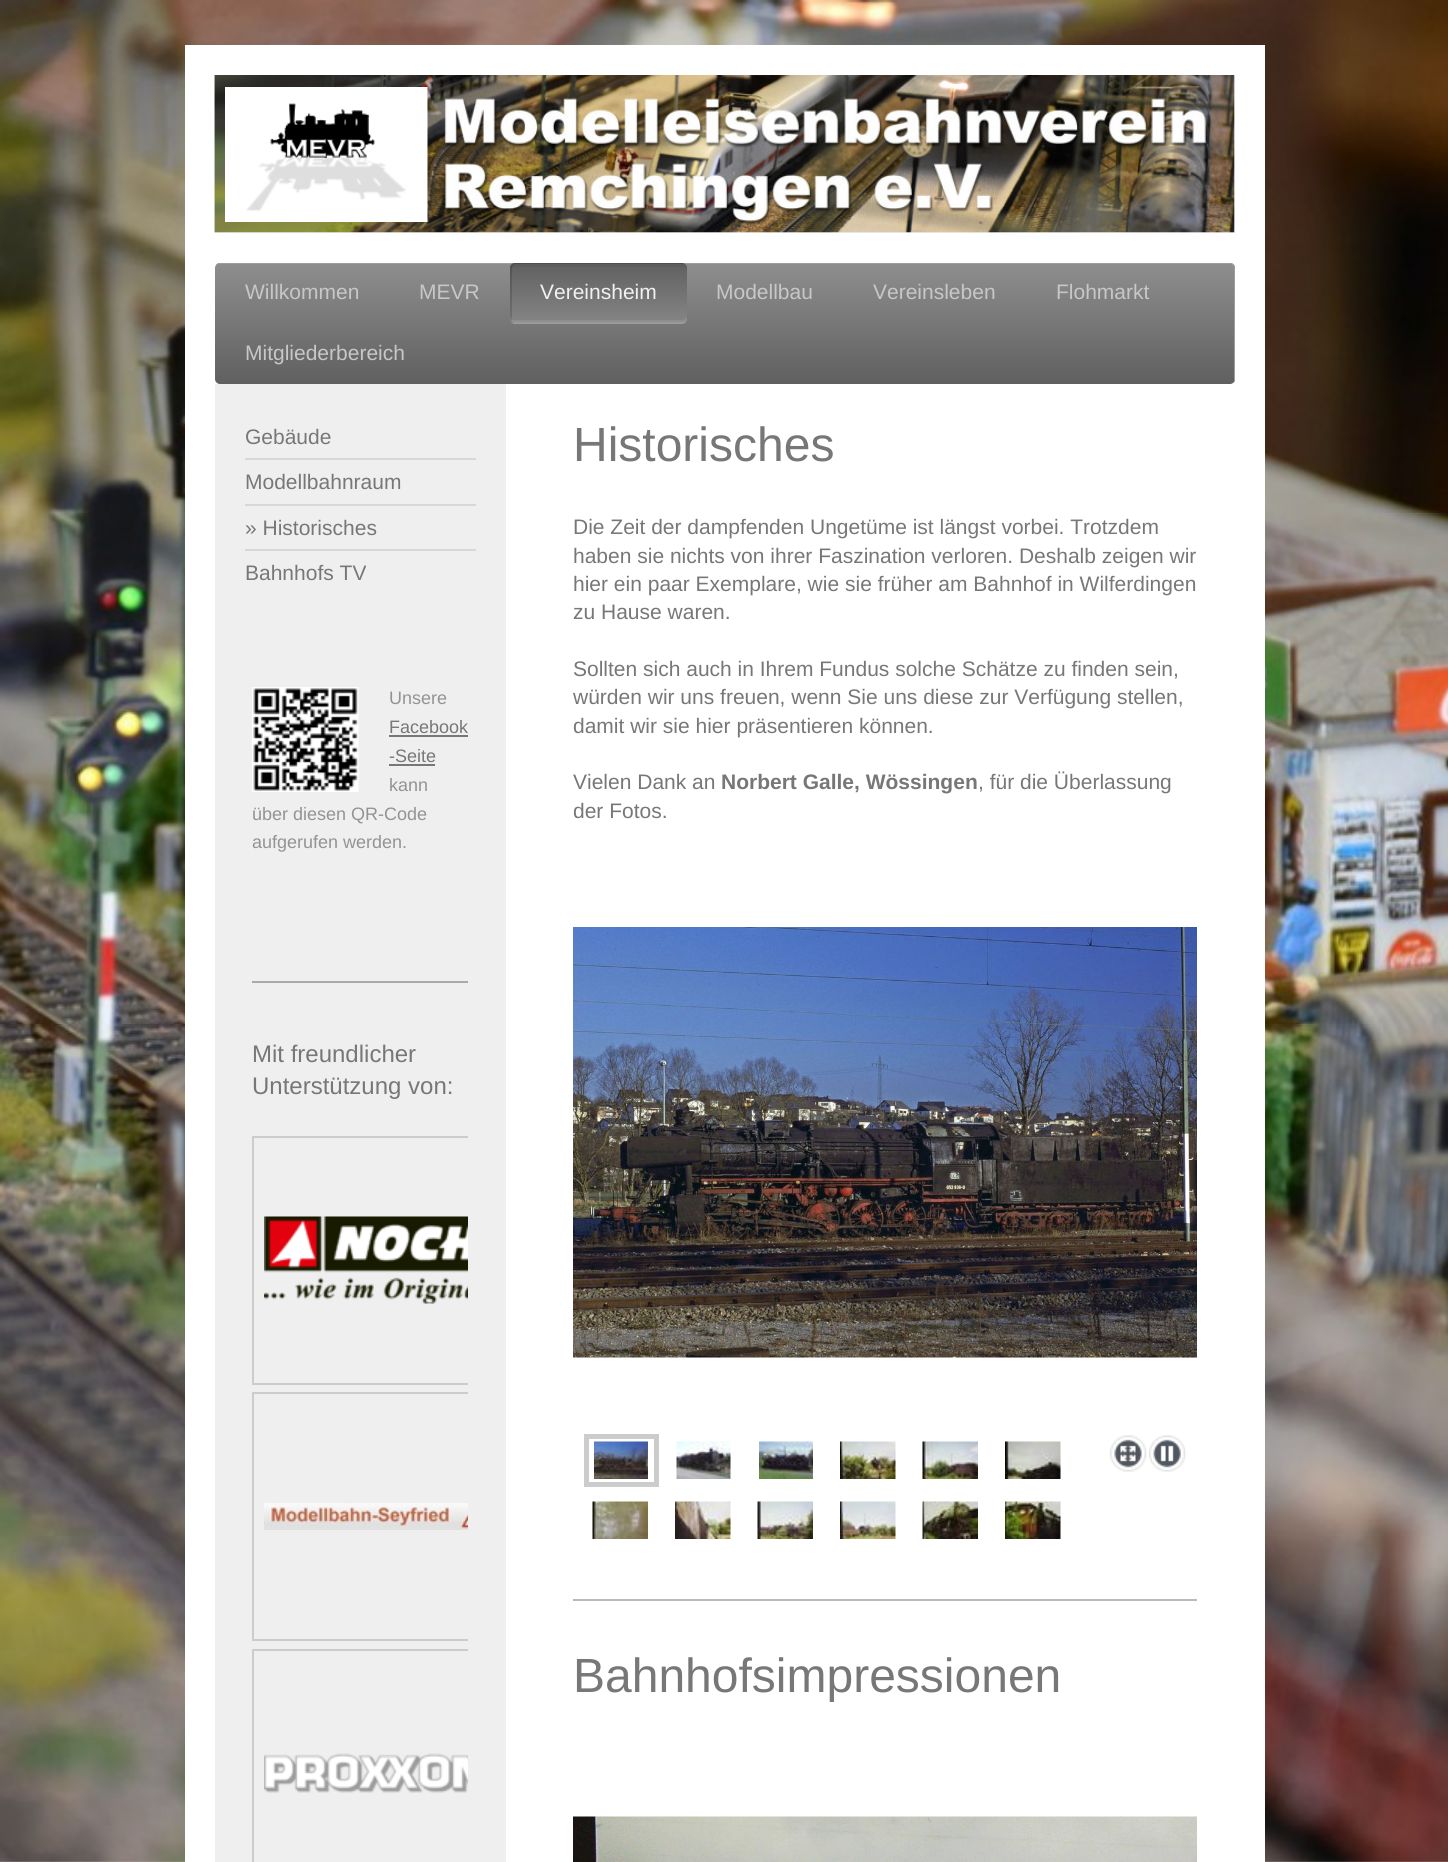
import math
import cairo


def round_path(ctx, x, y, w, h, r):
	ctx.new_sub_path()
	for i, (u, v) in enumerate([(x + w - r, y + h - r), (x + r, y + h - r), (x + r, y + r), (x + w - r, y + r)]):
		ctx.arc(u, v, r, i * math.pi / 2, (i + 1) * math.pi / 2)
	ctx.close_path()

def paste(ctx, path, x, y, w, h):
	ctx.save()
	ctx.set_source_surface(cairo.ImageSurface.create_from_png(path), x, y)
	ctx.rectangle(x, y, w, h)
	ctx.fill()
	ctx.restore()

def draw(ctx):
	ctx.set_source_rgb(1, 1, 1)
	ctx.paint()
	paste(ctx, 'media/1.png', 0, 0, 1448, 1862)
	ctx.set_source_rgb(1, 1, 1)
	ctx.rectangle(185, 45, 1080, 1817)
	ctx.fill()
	paste(ctx, 'media/2.png', 214, 75, 1, 158)
	ctx.set_source_rgb(0.933, 0.933, 0.933)
	ctx.rectangle(215, 75, 1020, 158)
	ctx.fill()
	paste(ctx, 'media/3.png', 214, 75, 1021, 158)
	paste(ctx, 'media/4.png', 225, 87, 203, 135)
	gradient = cairo.LinearGradient(215, 263, 215, 384)
	gradient.add_color_stop_rgba(0, 0.557, 0.557, 0.557, 1)
	gradient.add_color_stop_rgba(1, 0.376, 0.376, 0.376, 1)
	ctx.set_source(gradient)
	round_path(ctx, 215, 263, 1020, 121, 5)
	ctx.fill()
	ctx.set_source_rgb(0.455, 0.455, 0.455)
	ctx.new_path()
	ctx.move_to(219, 264)
	ctx.line_to(1230, 264)
	ctx.curve_to(1232, 264, 1234, 266, 1234, 268)
	ctx.line_to(1234, 382)
	ctx.curve_to(1235, 381, 1235, 380, 1235, 379)
	ctx.line_to(1235, 268)
	ctx.curve_to(1235, 265, 1233, 263, 1230, 263)
	ctx.line_to(220, 263)
	ctx.curve_to(218, 263, 217, 264, 216, 265)
	ctx.close_path()
	ctx.fill()
	ctx.set_source_rgba(1, 1, 1, 0.3)
	ctx.new_path()
	ctx.move_to(219, 264)
	ctx.line_to(1230, 264)
	ctx.curve_to(1232, 264, 1234, 266, 1234, 268)
	ctx.line_to(1234, 382)
	ctx.curve_to(1235, 381, 1235, 380, 1235, 379)
	ctx.line_to(1235, 268)
	ctx.curve_to(1235, 265, 1233, 263, 1230, 263)
	ctx.line_to(220, 263)
	ctx.curve_to(218, 263, 217, 264, 216, 265)
	ctx.close_path()
	ctx.fill()
	ctx.select_font_face('Liberation Sans')
	ctx.set_font_size(21)
	ctx.set_source_rgb(0.78, 0.78, 0.78)
	ctx.move_to(245, 299)
	ctx.show_text('Willkommen')
	ctx.move_to(419, 299)
	ctx.show_text('MEVR')
	gradient = cairo.LinearGradient(510, 324, 510, 263)
	gradient.add_color_stop_rgba(0, 0.525, 0.525, 0.525, 1)
	gradient.add_color_stop_rgba(1, 0.376, 0.376, 0.376, 1)
	ctx.set_source(gradient)
	round_path(ctx, 510, 263, 177, 61, 5)
	ctx.fill()
	ctx.set_source_rgba(0, 0, 0, 0.15)
	ctx.new_path()
	ctx.move_to(516, 264)
	ctx.line_to(685, 264)
	ctx.curve_to(684, 263, 683, 263, 682, 263)
	ctx.line_to(515, 263)
	ctx.curve_to(512, 263, 510, 265, 510, 268)
	ctx.line_to(510, 319)
	ctx.curve_to(510, 321, 511, 323, 513, 323)
	ctx.line_to(512, 321)
	ctx.line_to(512, 268)
	ctx.curve_to(512, 266, 514, 264, 516, 264)
	ctx.close_path()
	ctx.fill()
	ctx.set_source_rgba(0, 0, 0, 0.04)
	ctx.new_path()
	ctx.move_to(514, 267)
	ctx.line_to(682, 267)
	ctx.curve_to(685, 267, 687, 269, 687, 272)
	ctx.line_to(687, 268)
	ctx.curve_to(687, 265, 685, 263, 682, 263)
	ctx.line_to(515, 263)
	ctx.curve_to(512, 263, 510, 265, 510, 268)
	ctx.line_to(510, 272)
	ctx.curve_to(510, 269, 512, 267, 514, 267)
	ctx.close_path()
	ctx.fill()
	ctx.set_source_rgba(1, 1, 1, 0.08)
	ctx.new_path()
	ctx.move_to(510, 315)
	ctx.line_to(510, 319)
	ctx.curve_to(510, 322, 512, 324, 515, 324)
	ctx.line_to(682, 324)
	ctx.curve_to(685, 324, 687, 322, 687, 319)
	ctx.line_to(687, 315)
	ctx.curve_to(687, 317, 685, 320, 682, 320)
	ctx.line_to(514, 320)
	ctx.curve_to(512, 320, 510, 317, 510, 315)
	ctx.close_path()
	ctx.fill()
	ctx.set_source_rgba(1, 1, 1, 0.1)
	ctx.new_path()
	ctx.move_to(510, 318)
	ctx.curve_to(510, 321, 511, 323, 514, 324)
	ctx.line_to(682, 324)
	ctx.curve_to(685, 324, 687, 321, 687, 318)
	ctx.curve_to(687, 320, 685, 322, 682, 322)
	ctx.line_to(514, 322)
	ctx.curve_to(512, 322, 510, 320, 510, 318)
	ctx.close_path()
	ctx.fill()
	ctx.set_source_rgb(0.945, 0.945, 0.945)
	ctx.move_to(540, 299)
	ctx.show_text('Vereinsheim')
	ctx.set_source_rgb(0.78, 0.78, 0.78)
	for x, y, s in [
		(716, 299, 'Modellbau'),
		(873, 299, 'Vereinsleben'),
		(1056, 299, 'Flohmarkt'),
		(245, 360, 'Mitgliederbereich'),
	]:
		ctx.move_to(x, y)
		ctx.show_text(s)
	ctx.set_source_rgb(0.937, 0.937, 0.937)
	ctx.rectangle(215, 384, 291, 1478)
	ctx.fill()
	ctx.set_font_size(48)
	ctx.set_source_rgb(0.467, 0.467, 0.467)
	ctx.move_to(573, 461)
	ctx.show_text('Historisches')
	ctx.set_font_size(21)
	for x, y, s in [
		(573, 534, 'Die Zeit der dampfenden Ungetüme ist längst vorbei. Trotzdem'),
		(573, 563, 'haben sie nichts von ihrer Faszination verloren. Deshalb zeigen wir'),
		(573, 591, 'hier ein paar Exemplare, wie sie früher am Bahnhof in Wilferdingen'),
		(573, 619, 'zu Hause waren.'),
		(573, 676, 'Sollten sich auch in Ihrem Fundus solche Schätze zu finden sein,'),
		(573, 704, 'würden wir uns freuen, wenn Sie uns diese zur Verfügung stellen,'),
		(573, 733, 'damit wir sie hier präsentieren können.'),
		(573, 789, 'Vielen Dank an'),
	]:
		ctx.move_to(x, y)
		ctx.show_text(s)
	ctx.select_font_face('Liberation Sans', cairo.FONT_SLANT_NORMAL, cairo.FONT_WEIGHT_BOLD)
	ctx.move_to(721, 789)
	ctx.show_text('Norbert Galle, Wössingen')
	ctx.select_font_face('Liberation Sans')
	ctx.move_to(978, 789)
	ctx.show_text(', für die Überlassung')
	ctx.move_to(573, 818)
	ctx.show_text('der Fotos.')
	paste(ctx, 'media/5.png', 573, 927, 624, 431)
	ctx.rectangle(586.5, 1436.5, 70, 48)
	ctx.set_source_rgb(0.8, 0.8, 0.8)
	ctx.set_line_width(5)
	ctx.stroke()
	paste(ctx, 'media/6.png', 594, 1441, 54, 38)
	paste(ctx, 'media/7.png', 676, 1441, 55, 38)
	paste(ctx, 'media/8.png', 759, 1441, 54, 38)
	paste(ctx, 'media/9.png', 840, 1441, 56, 38)
	paste(ctx, 'media/10.png', 922, 1441, 56, 38)
	paste(ctx, 'media/11.png', 1005, 1441, 56, 38)
	paste(ctx, 'media/12.png', 1109, 1435, 38, 37)
	paste(ctx, 'media/13.png', 1148, 1435, 38, 37)
	paste(ctx, 'media/14.png', 592, 1501, 56, 38)
	paste(ctx, 'media/15.png', 675, 1501, 56, 38)
	paste(ctx, 'media/16.png', 757, 1501, 56, 38)
	paste(ctx, 'media/17.png', 840, 1501, 56, 38)
	paste(ctx, 'media/18.png', 922, 1501, 56, 38)
	paste(ctx, 'media/19.png', 1005, 1501, 56, 38)
	ctx.set_source_rgb(0.729, 0.729, 0.729)
	ctx.rectangle(573, 1599, 624, 2)
	ctx.fill()
	ctx.set_font_size(48)
	ctx.set_source_rgb(0.467, 0.467, 0.467)
	ctx.move_to(573, 1692)
	ctx.show_text('Bahnhofsimpressionen')
	paste(ctx, 'media/20.png', 573, 1816, 624, 46)
	ctx.set_source_rgb(0.843, 0.843, 0.843)
	ctx.rectangle(245, 458, 231, 2)
	ctx.fill()
	ctx.set_font_size(21)
	ctx.set_source_rgb(0.467, 0.467, 0.467)
	ctx.move_to(245, 444)
	ctx.show_text('Gebäude')
	ctx.set_source_rgb(0.843, 0.843, 0.843)
	ctx.rectangle(245, 504, 231, 2)
	ctx.fill()
	ctx.set_source_rgb(0.467, 0.467, 0.467)
	ctx.move_to(245, 489)
	ctx.show_text('Modellbahnraum')
	ctx.set_source_rgb(0.843, 0.843, 0.843)
	ctx.rectangle(245, 549, 231, 2)
	ctx.fill()
	ctx.set_source_rgb(0.467, 0.467, 0.467)
	ctx.move_to(245, 535)
	ctx.show_text('» Historisches')
	ctx.move_to(245, 580)
	ctx.show_text('Bahnhofs TV')
	paste(ctx, 'media/21.png', 252, 687, 107, 105)
	ctx.set_font_size(18)
	ctx.set_source_rgb(0.576, 0.576, 0.576)
	ctx.move_to(389, 704)
	ctx.show_text('Unsere')
	ctx.set_source_rgb(0.467, 0.467, 0.467)
	ctx.move_to(389, 733)
	ctx.show_text('Facebook')
	ctx.rectangle(389, 735, 79, 2)
	ctx.fill()
	ctx.move_to(389, 762)
	ctx.show_text('-Seite')
	ctx.rectangle(389, 764, 46, 2)
	ctx.fill()
	ctx.set_source_rgb(0.576, 0.576, 0.576)
	for x, y, s in [
		(389, 791, 'kann'),
		(252, 820, 'über diesen QR-Code'),
		(252, 848, 'aufgerufen werden.'),
	]:
		ctx.move_to(x, y)
		ctx.show_text(s)
	ctx.set_source_rgb(0.667, 0.667, 0.667)
	ctx.rectangle(252, 981, 216, 2)
	ctx.fill()
	ctx.set_font_size(24)
	ctx.set_source_rgb(0.467, 0.467, 0.467)
	ctx.move_to(252, 1062)
	ctx.show_text('Mit freundlicher')
	ctx.move_to(252, 1094)
	ctx.show_text('Unterstützung von:')
	ctx.save()
	ctx.rectangle(252, 1136, 216, 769)
	ctx.clip()
	ctx.rectangle(253, 1137, 247, 247)
	ctx.set_source_rgb(0.8, 0.8, 0.8)
	ctx.set_line_width(2)
	ctx.stroke()
	ctx.restore()
	paste(ctx, 'media/22.png', 264, 1216, 204, 88)
	ctx.save()
	ctx.rectangle(252, 1136, 216, 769)
	ctx.clip()
	ctx.rectangle(253, 1393, 247, 247)
	ctx.set_source_rgb(0.8, 0.8, 0.8)
	ctx.set_line_width(2)
	ctx.stroke()
	ctx.restore()
	paste(ctx, 'media/23.png', 264, 1503, 204, 27)
	ctx.save()
	ctx.rectangle(252, 1136, 216, 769)
	ctx.clip()
	ctx.rectangle(253, 1650, 247, 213)
	ctx.set_source_rgb(0.8, 0.8, 0.8)
	ctx.set_line_width(2)
	ctx.stroke()
	ctx.restore()
	paste(ctx, 'media/24.png', 264, 1753, 204, 40)


surface = cairo.ImageSurface(cairo.FORMAT_RGB24, 1448, 1862)
ctx = cairo.Context(surface)
options = cairo.FontOptions()
options.set_hint_metrics(cairo.HINT_METRICS_OFF)
options.set_hint_style(cairo.HINT_STYLE_NONE)
ctx.set_font_options(options)
ctx.set_miter_limit(4)
draw(ctx)
surface.write_to_png('image.png')
